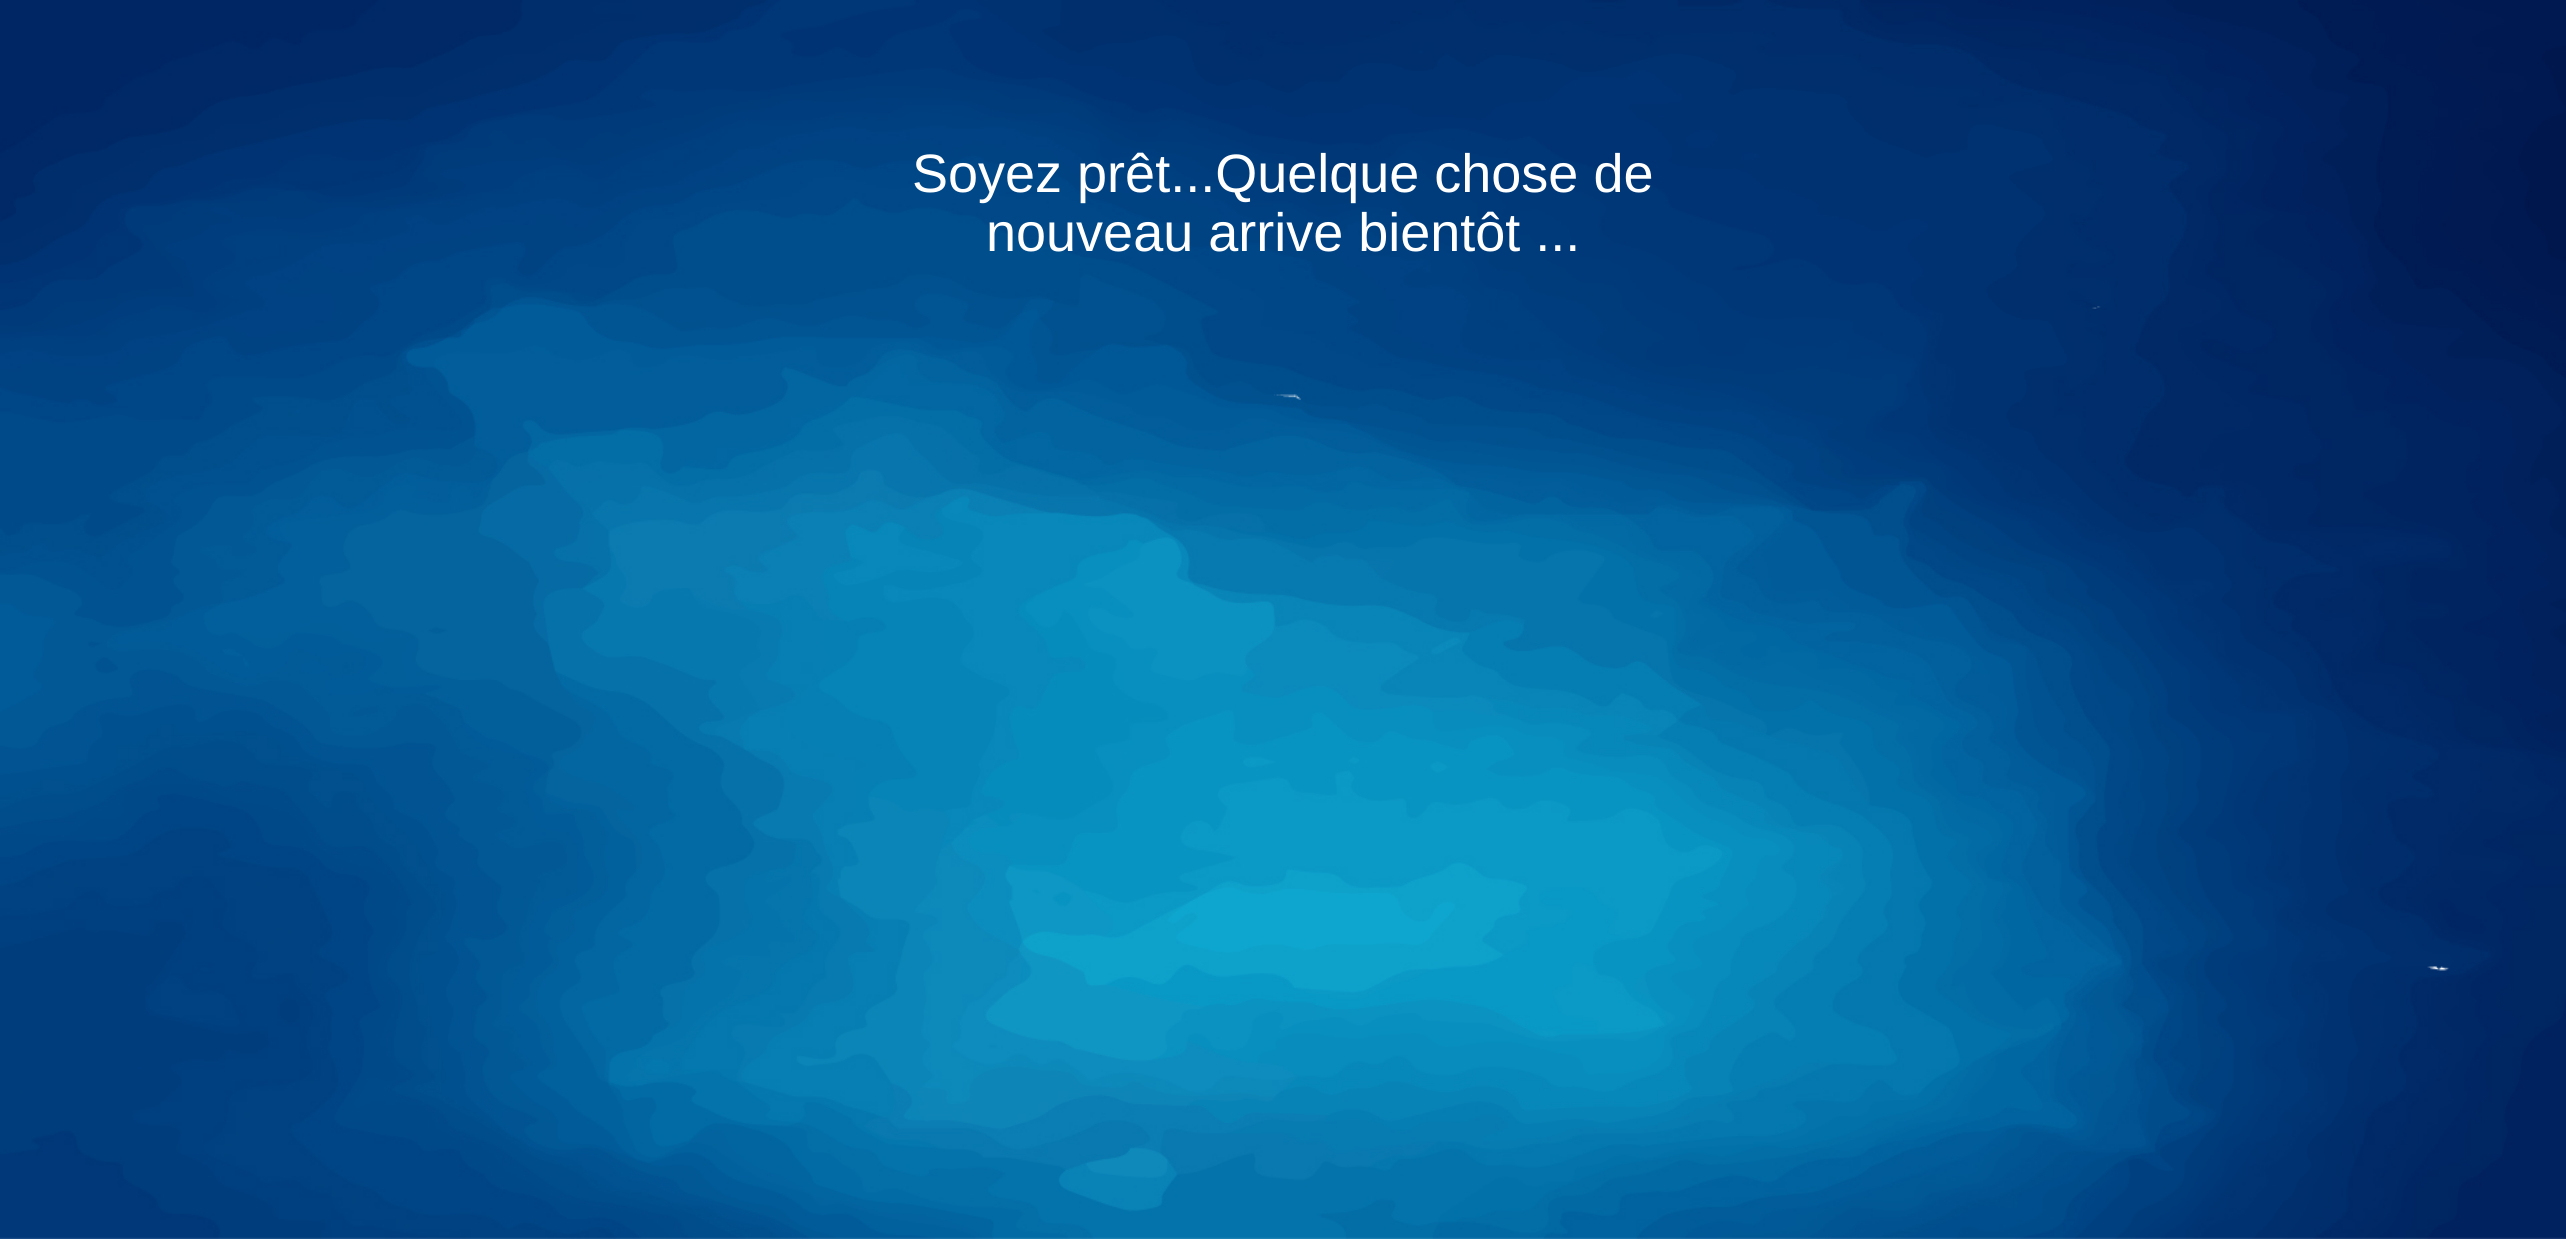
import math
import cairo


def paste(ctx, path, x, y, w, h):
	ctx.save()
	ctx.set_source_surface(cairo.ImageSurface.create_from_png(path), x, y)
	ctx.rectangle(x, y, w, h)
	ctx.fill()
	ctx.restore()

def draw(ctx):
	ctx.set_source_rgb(1, 1, 1)
	ctx.paint()
	paste(ctx, 'media/1.png', 0, 0, 2566, 1239)
	ctx.select_font_face('Liberation Sans')
	ctx.set_font_size(54)
	ctx.set_source_rgb(1, 1, 1)
	ctx.move_to(912, 192)
	ctx.show_text('Soyez prêt...Quelque chose de')
	ctx.move_to(986, 251)
	ctx.show_text('nouveau arrive bientôt ...')


surface = cairo.ImageSurface(cairo.FORMAT_RGB24, 2566, 1239)
ctx = cairo.Context(surface)
options = cairo.FontOptions()
options.set_hint_metrics(cairo.HINT_METRICS_OFF)
options.set_hint_style(cairo.HINT_STYLE_NONE)
ctx.set_font_options(options)
ctx.set_miter_limit(4)
draw(ctx)
surface.write_to_png('image.png')
